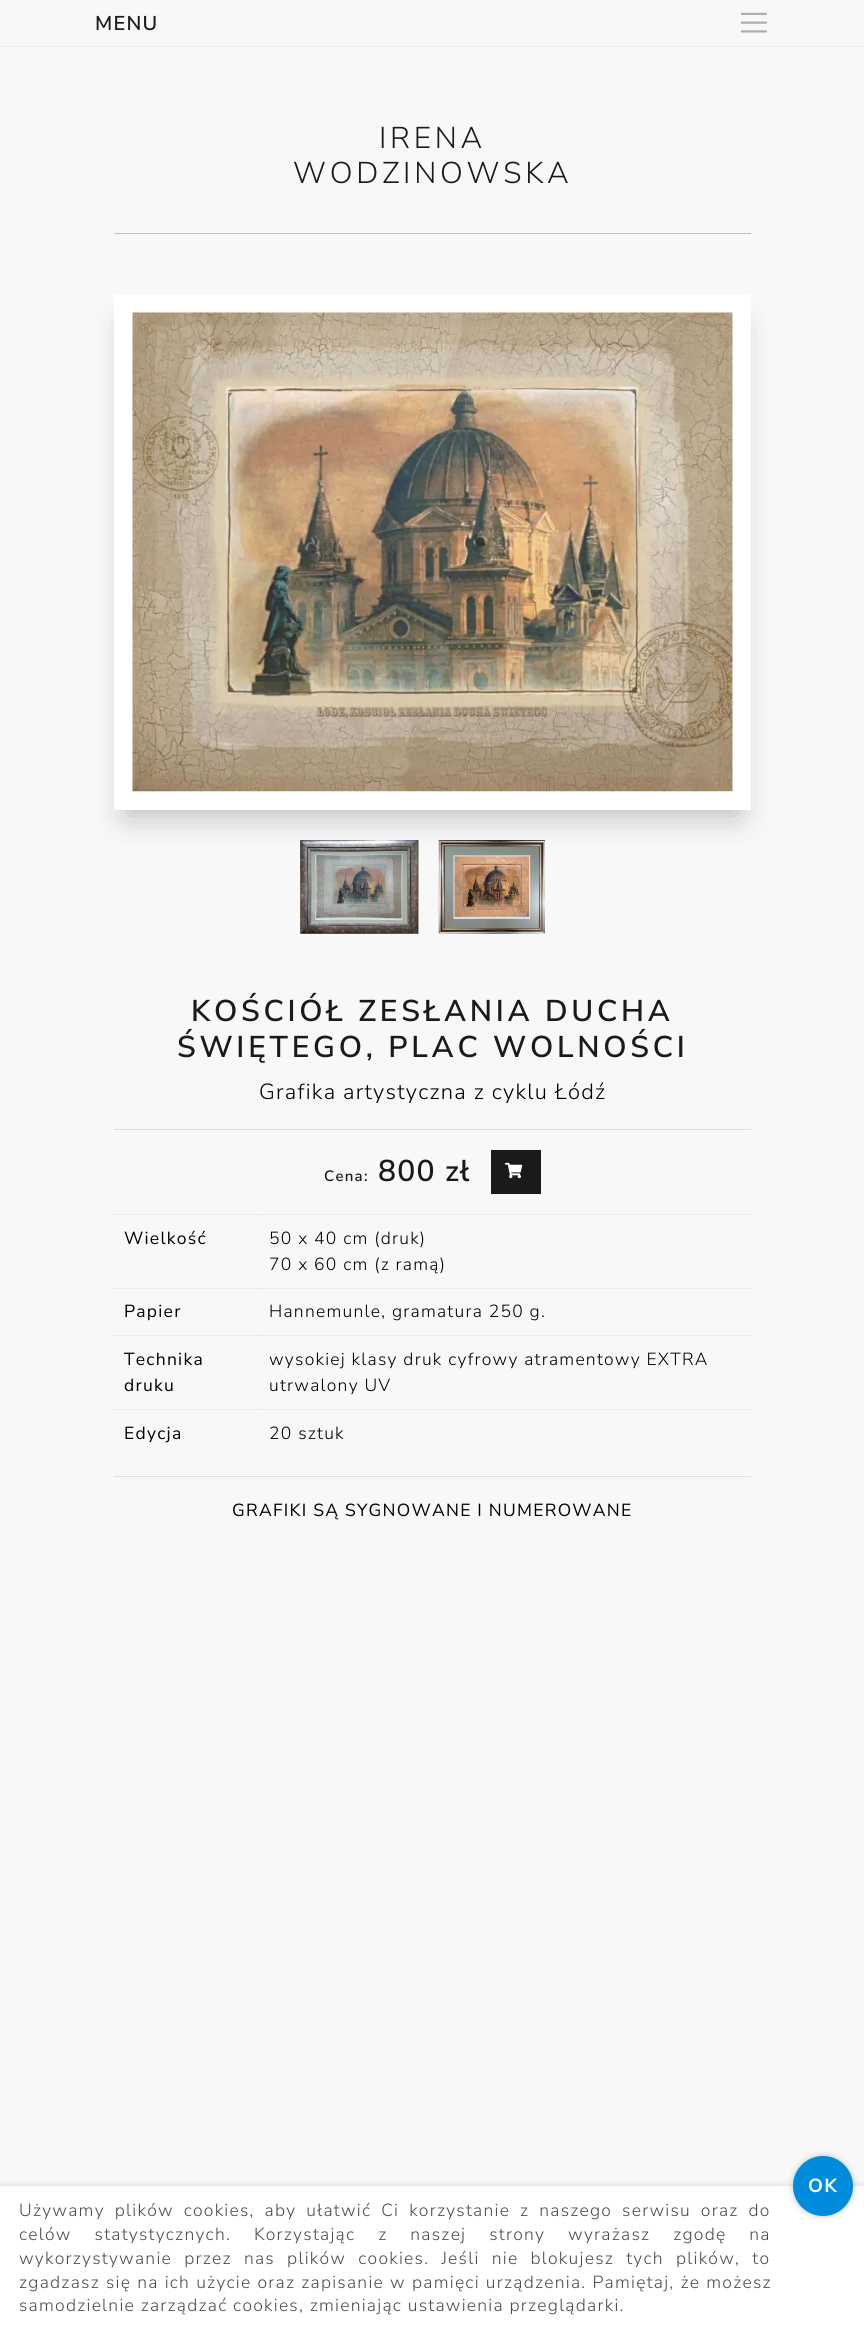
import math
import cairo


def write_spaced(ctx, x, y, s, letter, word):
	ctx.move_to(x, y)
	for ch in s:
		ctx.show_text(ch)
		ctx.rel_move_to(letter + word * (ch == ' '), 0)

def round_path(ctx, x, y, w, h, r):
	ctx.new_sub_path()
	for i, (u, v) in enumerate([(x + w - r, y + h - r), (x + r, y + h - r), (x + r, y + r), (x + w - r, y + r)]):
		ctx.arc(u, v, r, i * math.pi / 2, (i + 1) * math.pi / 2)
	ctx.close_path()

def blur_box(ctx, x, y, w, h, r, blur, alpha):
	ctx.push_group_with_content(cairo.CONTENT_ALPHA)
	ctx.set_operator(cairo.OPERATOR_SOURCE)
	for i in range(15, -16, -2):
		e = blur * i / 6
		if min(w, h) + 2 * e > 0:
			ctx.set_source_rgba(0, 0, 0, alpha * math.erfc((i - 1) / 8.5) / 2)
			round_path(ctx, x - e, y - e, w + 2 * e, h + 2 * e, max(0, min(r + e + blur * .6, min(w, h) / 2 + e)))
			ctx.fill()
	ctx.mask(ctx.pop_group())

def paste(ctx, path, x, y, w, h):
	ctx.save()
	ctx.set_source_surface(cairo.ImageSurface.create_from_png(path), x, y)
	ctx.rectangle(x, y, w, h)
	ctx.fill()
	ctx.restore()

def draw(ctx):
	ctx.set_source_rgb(0.969, 0.969, 0.969)
	ctx.paint()
	ctx.set_source_rgb(0.922, 0.922, 0.922)
	ctx.rectangle(114, 1214, 637, 1)
	ctx.rectangle(114, 1288, 637, 1)
	ctx.rectangle(114, 1335, 637, 1)
	ctx.rectangle(114, 1409, 637, 1)
	ctx.fill()
	ctx.set_source_rgb(0.925, 0.933, 0.937)
	ctx.rectangle(0, 46, 864, 1)
	ctx.fill()
	ctx.select_font_face('Nunito Sans SemiBold')
	ctx.set_font_size(20)
	ctx.set_source_rgb(0.102, 0.102, 0.102)
	write_spaced(ctx, 95, 30, 'MENU', 1.25, 0)
	paste(ctx, 'media/1.png', 740, 12, 27, 21)
	ctx.select_font_face('Nunito Sans Light')
	ctx.set_font_size(30)
	write_spaced(ctx, 379, 148, 'IRENA', 3.75, 0)
	write_spaced(ctx, 293, 183, 'WODZINOWSKA', 3.75, 0)
	ctx.set_source_rgb(0.753, 0.753, 0.753)
	ctx.rectangle(114, 233, 637, 1)
	ctx.fill()
	ctx.set_source_rgb(0, 0, 0)
	blur_box(ctx, 126, 325, 613, 491, 0, 15.5, 0.25)
	ctx.rectangle(123.5, 303.5, 618, 497)
	ctx.set_source_rgb(1, 1, 1)
	ctx.set_line_width(19)
	ctx.stroke()
	paste(ctx, 'media/2.png', 132, 312, 601, 480)
	paste(ctx, 'media/3.png', 300, 840, 119, 94)
	paste(ctx, 'media/4.png', 438, 840, 107, 94)
	ctx.select_font_face('Nunito Sans SemiBold')
	ctx.set_source_rgb(0.102, 0.102, 0.102)
	write_spaced(ctx, 191, 1021, 'KOŚCIÓŁ ZESŁANIA DUCHA', 3.75, 0)
	write_spaced(ctx, 177, 1057, 'ŚWIĘTEGO, PLAC WOLNOŚCI', 3.75, 0)
	ctx.select_font_face('Nunito Sans Light')
	ctx.set_font_size(21.9)
	ctx.set_source_rgb(0, 0, 0)
	write_spaced(ctx, 259, 1099, 'Grafika artystyczna z cyklu Łódź', 1.25, 0)
	ctx.set_source_rgb(0.871, 0.871, 0.871)
	ctx.rectangle(114, 1129, 637, 1)
	ctx.fill()
	ctx.select_font_face('Nunito Sans SemiBold')
	ctx.set_font_size(15)
	ctx.set_source_rgb(0.102, 0.102, 0.102)
	write_spaced(ctx, 324, 1181, 'Cena:', 1.25, 0)
	ctx.set_font_size(30)
	write_spaced(ctx, 378, 1181, '800 zł', 1.25, 0)
	ctx.rectangle(491, 1150, 50, 44)
	ctx.fill()
	paste(ctx, 'media/5.png', 505, 1162, 18, 17)
	ctx.select_font_face('Nunito Sans')
	ctx.set_font_size(17.5)
	ctx.set_source_rgb(0, 0, 0)
	write_spaced(ctx, 124, 1244, 'Wielkość', 1.25, 0)
	ctx.set_source_rgb(0.875, 0.875, 0.875)
	ctx.rectangle(259, 1214, 1, 1)
	ctx.fill()
	ctx.select_font_face('Nunito Sans Light')
	ctx.set_source_rgb(0, 0, 0)
	write_spaced(ctx, 269, 1244, '50 x 40 cm (druk)', 1.25, 0)
	write_spaced(ctx, 269, 1270, '70 x 60 cm (z ramą)', 1.25, 0)
	ctx.select_font_face('Nunito Sans')
	write_spaced(ctx, 124, 1317, 'Papier', 1.25, 0)
	ctx.set_source_rgb(0.875, 0.875, 0.875)
	ctx.rectangle(259, 1288, 1, 1)
	ctx.fill()
	ctx.select_font_face('Nunito Sans Light')
	ctx.set_source_rgb(0, 0, 0)
	write_spaced(ctx, 269, 1317, 'Hannemunle, gramatura 250 g.', 1.25, 0)
	ctx.select_font_face('Nunito Sans')
	write_spaced(ctx, 124, 1365, 'Technika', 1.25, 0)
	write_spaced(ctx, 124, 1391, 'druku', 1.25, 0)
	ctx.set_source_rgb(0.875, 0.875, 0.875)
	ctx.rectangle(259, 1335, 1, 1)
	ctx.fill()
	ctx.select_font_face('Nunito Sans Light')
	ctx.set_source_rgb(0, 0, 0)
	write_spaced(ctx, 269, 1365, 'wysokiej klasy druk cyfrowy atramentowy EXTRA', 1.25, 0)
	write_spaced(ctx, 269, 1391, 'utrwalony UV', 1.25, 0)
	ctx.select_font_face('Nunito Sans')
	write_spaced(ctx, 124, 1439, 'Edycja', 1.25, 0)
	ctx.set_source_rgb(0.875, 0.875, 0.875)
	ctx.rectangle(259, 1409, 1, 1)
	ctx.fill()
	ctx.select_font_face('Nunito Sans Light')
	ctx.set_source_rgb(0, 0, 0)
	write_spaced(ctx, 269, 1439, '20 sztuk', 1.25, 0)
	ctx.set_source_rgb(0.871, 0.871, 0.871)
	ctx.rectangle(114, 1476, 637, 1)
	ctx.fill()
	ctx.select_font_face('Nunito Sans')
	ctx.set_source_rgb(0, 0, 0)
	write_spaced(ctx, 232, 1516, 'GRAFIKI SĄ SYGNOWANE I NUMEROWANE', 1.25, 0)
	ctx.set_source_rgb(0.831, 0.831, 0.831)
	blur_box(ctx, 0, 2186, 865, 144, 0, 3, 1)
	ctx.set_source_rgb(1, 1, 1)
	ctx.rectangle(0, 2186, 864, 144)
	ctx.fill()
	ctx.set_source_rgb(0.753, 0.753, 0.753)
	blur_box(ctx, 793, 2156, 60, 60, 30, 3, 1)
	ctx.set_source_rgb(0, 0.549, 0.863)
	ctx.arc(823, 2186, 30, 0, 2 * math.pi)
	ctx.fill()
	ctx.select_font_face('Nunito Sans', cairo.FONT_SLANT_NORMAL, cairo.FONT_WEIGHT_BOLD)
	ctx.set_font_size(19)
	ctx.set_source_rgb(1, 1, 1)
	write_spaced(ctx, 808, 2192, 'OK', 1.25, 0)
	ctx.select_font_face('Nunito Sans Light')
	ctx.set_font_size(17.5)
	ctx.set_source_rgb(0.302, 0.302, 0.302)
	write_spaced(ctx, 19, 2216, 'Używamy plików cookies, aby ułatwić Ci korzystanie z naszego serwisu oraz do', 1.25, 4.25)
	write_spaced(ctx, 19, 2240, 'celów statystycznych. Korzystając z naszej strony wyrażasz zgodę na', 1.25, 17.25)
	write_spaced(ctx, 19, 2264, 'wykorzystywanie przez nas plików cookies. Jeśli nie blokujesz tych plików, to', 1.25, 6.5)
	write_spaced(ctx, 19, 2288, 'zgadzasz się na ich użycie oraz zapisanie w pamięci urządzenia. Pamiętaj, że możesz', 1.25, 0.4)
	write_spaced(ctx, 19, 2311, 'samodzielnie zarządzać cookies, zmieniając ustawienia przeglądarki.', 1.25, 0)


surface = cairo.ImageSurface(cairo.FORMAT_RGB24, 864, 2330)
ctx = cairo.Context(surface)
options = cairo.FontOptions()
options.set_hint_metrics(cairo.HINT_METRICS_OFF)
options.set_hint_style(cairo.HINT_STYLE_NONE)
ctx.set_font_options(options)
ctx.set_miter_limit(4)
draw(ctx)
surface.write_to_png('image.png')
